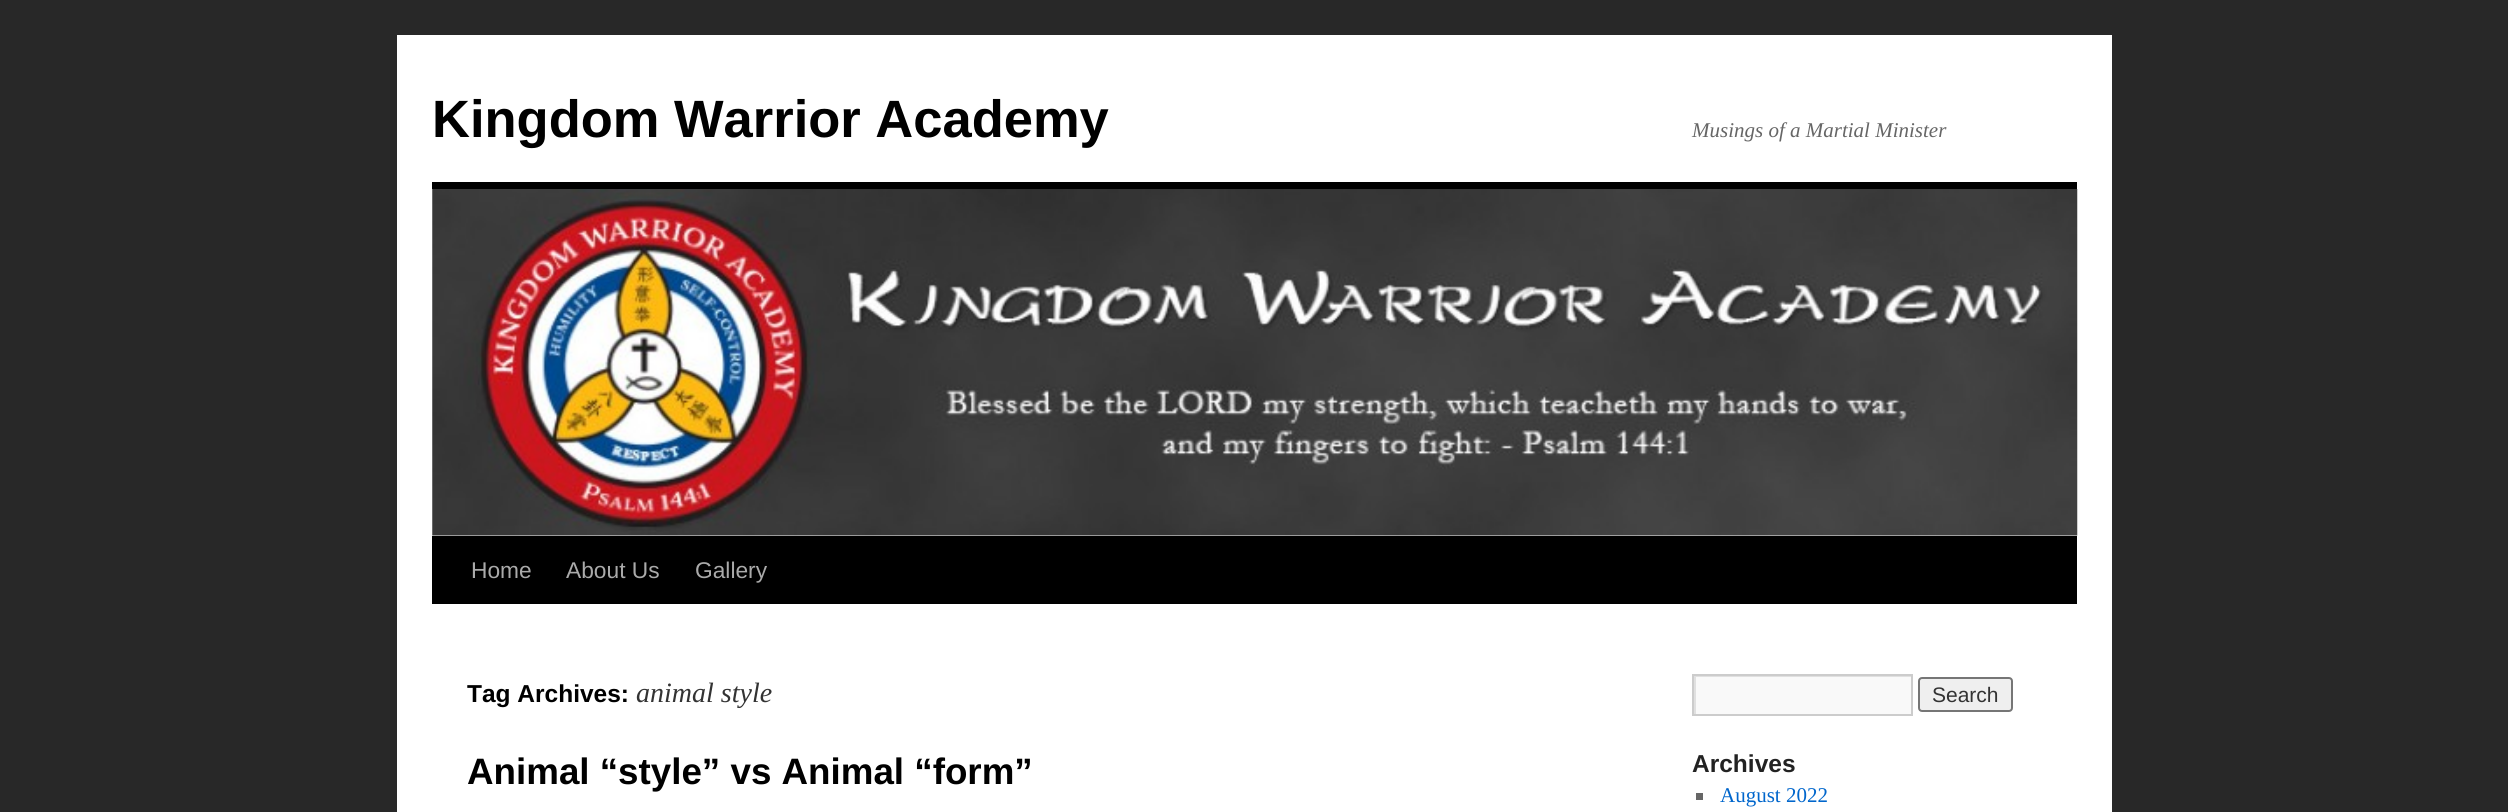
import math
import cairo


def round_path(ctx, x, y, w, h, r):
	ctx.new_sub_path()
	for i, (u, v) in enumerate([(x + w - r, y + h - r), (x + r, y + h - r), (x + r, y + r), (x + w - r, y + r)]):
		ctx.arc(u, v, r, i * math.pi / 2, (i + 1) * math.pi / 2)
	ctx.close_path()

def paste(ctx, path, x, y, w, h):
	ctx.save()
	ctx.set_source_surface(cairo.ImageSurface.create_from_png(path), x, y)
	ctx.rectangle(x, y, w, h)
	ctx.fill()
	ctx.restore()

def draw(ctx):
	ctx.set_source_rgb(0.157, 0.157, 0.157)
	ctx.paint()
	ctx.set_source_rgb(1, 1, 1)
	ctx.rectangle(397, 35, 1715, 777)
	ctx.fill()
	ctx.select_font_face('Liberation Sans', cairo.FONT_SLANT_NORMAL, cairo.FONT_WEIGHT_BOLD)
	ctx.set_font_size(52.5)
	ctx.set_source_rgb(0, 0, 0)
	ctx.move_to(432, 137)
	ctx.show_text('Kingdom Warrior Academy')
	ctx.select_font_face('Liberation Serif', cairo.FONT_SLANT_ITALIC)
	ctx.set_font_size(21)
	ctx.set_source_rgb(0.4, 0.4, 0.4)
	ctx.move_to(1692, 137)
	ctx.show_text('Musings of a Martial Minister')
	ctx.set_source_rgb(0, 0, 0)
	ctx.rectangle(432, 182, 1645, 7)
	ctx.fill()
	ctx.rectangle(432, 536, 1645, 68)
	ctx.fill()
	paste(ctx, 'media/1.png', 432, 189, 1646, 347)
	ctx.select_font_face('Liberation Sans')
	ctx.set_font_size(22.75)
	ctx.set_source_rgb(0.667, 0.667, 0.667)
	for x, y, s in [
		(471, 578, 'Home'),
		(566, 578, 'About Us'),
		(695, 578, 'Gallery'),
	]:
		ctx.move_to(x, y)
		ctx.show_text(s)
	ctx.select_font_face('Liberation Sans', cairo.FONT_SLANT_NORMAL, cairo.FONT_WEIGHT_BOLD)
	ctx.set_font_size(24.5)
	ctx.set_source_rgb(0, 0, 0)
	ctx.move_to(467, 702)
	ctx.show_text('Tag Archives:')
	ctx.select_font_face('Liberation Serif', cairo.FONT_SLANT_ITALIC)
	ctx.set_font_size(28)
	ctx.set_source_rgb(0.2, 0.2, 0.2)
	ctx.move_to(636, 702)
	ctx.show_text('animal style')
	ctx.select_font_face('Liberation Sans', cairo.FONT_SLANT_NORMAL, cairo.FONT_WEIGHT_BOLD)
	ctx.set_font_size(36.75)
	ctx.set_source_rgb(0, 0, 0)
	ctx.move_to(467, 784)
	ctx.show_text('Animal “style” vs Animal “form”')
	ctx.set_source_rgb(0.976, 0.976, 0.976)
	ctx.rectangle(1696, 677, 215, 37)
	ctx.fill()
	ctx.save()
	ctx.rectangle(1694, 676, 217, 38)
	ctx.clip()
	ctx.set_source_rgb(0.878, 0.878, 0.878)
	ctx.set_fill_rule(cairo.FILL_RULE_EVEN_ODD)
	ctx.new_path()
	ctx.move_to(1521, 502)
	ctx.line_to(2084, 502)
	ctx.line_to(2084, 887)
	ctx.line_to(1521, 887)
	ctx.close_path()
	ctx.move_to(1696, 677)
	ctx.line_to(1913, 677)
	ctx.line_to(1913, 716)
	ctx.line_to(1696, 716)
	ctx.close_path()
	ctx.fill()
	ctx.restore()
	ctx.rectangle(1693, 675, 219, 40)
	ctx.set_source_rgb(0.8, 0.8, 0.8)
	ctx.stroke()
	ctx.set_source_rgb(0.937, 0.937, 0.937)
	round_path(ctx, 1919, 678, 93, 33, 3)
	ctx.fill_preserve()
	ctx.set_source_rgb(0.463, 0.463, 0.463)
	ctx.stroke()
	ctx.select_font_face('Liberation Sans')
	ctx.set_font_size(21)
	ctx.set_source_rgb(0.2, 0.2, 0.2)
	ctx.move_to(1932, 702)
	ctx.show_text('Search')
	ctx.select_font_face('Liberation Sans', cairo.FONT_SLANT_NORMAL, cairo.FONT_WEIGHT_BOLD)
	ctx.set_font_size(24.5)
	ctx.set_source_rgb(0.133, 0.133, 0.133)
	ctx.move_to(1692, 772)
	ctx.show_text('Archives')
	ctx.set_source_rgb(0.4, 0.4, 0.4)
	ctx.rectangle(1696, 793, 7, 7)
	ctx.fill()
	ctx.select_font_face('Liberation Serif')
	ctx.set_font_size(21)
	ctx.set_source_rgb(0, 0.4, 0.8)
	ctx.move_to(1720, 802)
	ctx.show_text('August 2022')


surface = cairo.ImageSurface(cairo.FORMAT_RGB24, 2508, 812)
ctx = cairo.Context(surface)
options = cairo.FontOptions()
options.set_hint_metrics(cairo.HINT_METRICS_OFF)
options.set_hint_style(cairo.HINT_STYLE_NONE)
ctx.set_font_options(options)
ctx.set_miter_limit(4)
draw(ctx)
surface.write_to_png('image.png')
